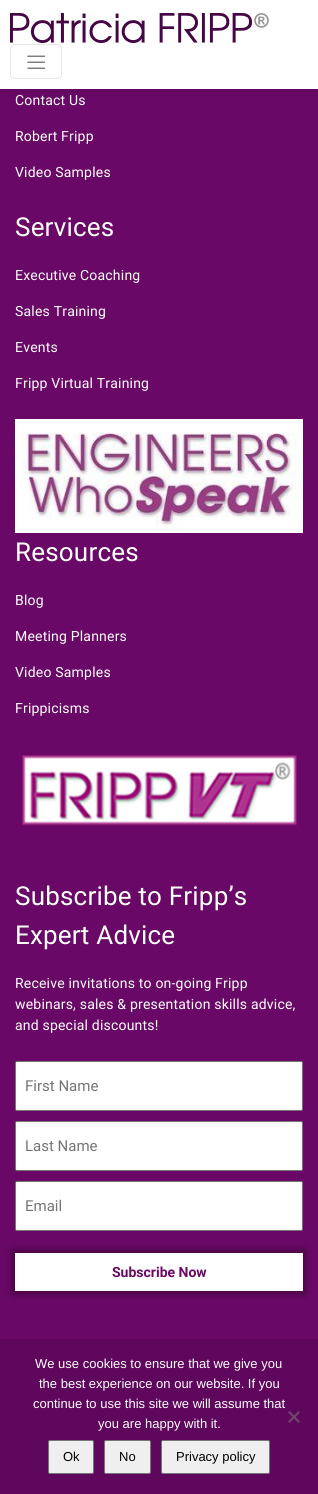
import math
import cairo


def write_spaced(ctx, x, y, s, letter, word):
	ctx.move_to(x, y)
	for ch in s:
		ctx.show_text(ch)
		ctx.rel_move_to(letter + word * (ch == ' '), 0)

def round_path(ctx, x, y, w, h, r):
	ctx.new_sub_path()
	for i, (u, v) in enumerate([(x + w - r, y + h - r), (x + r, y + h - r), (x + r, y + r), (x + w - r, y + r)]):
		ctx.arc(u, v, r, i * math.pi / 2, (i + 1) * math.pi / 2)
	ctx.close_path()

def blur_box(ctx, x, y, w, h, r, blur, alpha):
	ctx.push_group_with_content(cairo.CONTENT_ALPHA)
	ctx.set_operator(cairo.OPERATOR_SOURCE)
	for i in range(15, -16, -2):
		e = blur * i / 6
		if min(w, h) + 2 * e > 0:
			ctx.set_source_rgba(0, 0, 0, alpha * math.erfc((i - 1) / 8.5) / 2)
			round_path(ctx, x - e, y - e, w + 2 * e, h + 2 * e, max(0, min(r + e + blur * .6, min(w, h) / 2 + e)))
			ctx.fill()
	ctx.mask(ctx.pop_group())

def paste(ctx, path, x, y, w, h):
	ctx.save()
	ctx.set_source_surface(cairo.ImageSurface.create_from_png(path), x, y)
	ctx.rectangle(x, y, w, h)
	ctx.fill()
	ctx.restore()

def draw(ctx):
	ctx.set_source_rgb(0.412, 0.035, 0.4)
	ctx.paint()
	ctx.set_source_rgb(0, 0, 0)
	blur_box(ctx, 2, 0, 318, 89, 0, 5.5, 0.12)
	ctx.set_source_rgb(1, 1, 1)
	ctx.rectangle(0, 0, 318, 89)
	ctx.fill()
	paste(ctx, 'media/1.png', 10, 13, 259, 30)
	round_path(ctx, 10.5, 44.5, 51, 34, 4.5)
	ctx.set_source_rgb(0.902, 0.902, 0.902)
	ctx.set_line_width(1)
	ctx.stroke()
	paste(ctx, 'media/2.png', 27, 55, 19, 14)
	ctx.select_font_face('Roboto')
	ctx.set_font_size(14)
	ctx.set_source_rgb(1, 1, 1)
	for x, y, s in [
		(15, 105, 'Contact Us'),
		(15, 141, 'Robert Fripp'),
		(15, 177, 'Video Samples'),
	]:
		write_spaced(ctx, x, y, s, 0.2, 0)
	ctx.set_font_size(26)
	write_spaced(ctx, 15, 236, 'Services', 0.2, 0)
	ctx.set_font_size(14)
	for x, y, s in [
		(15, 280, 'Executive Coaching'),
		(15, 316, 'Sales Training'),
		(15, 352, 'Events'),
		(15, 388, 'Fripp Virtual Training'),
	]:
		write_spaced(ctx, x, y, s, 0.2, 0)
	paste(ctx, 'media/3.png', 15, 419, 288, 114)
	ctx.set_font_size(26)
	write_spaced(ctx, 15, 561, 'Resources', 0.2, 0)
	ctx.set_font_size(14)
	for x, y, s in [
		(15, 605, 'Blog'),
		(15, 641, 'Meeting Planners'),
		(15, 677, 'Video Samples'),
		(15, 713, 'Frippicisms'),
	]:
		write_spaced(ctx, x, y, s, 0.2, 0)
	paste(ctx, 'media/4.png', 22, 755, 275, 71)
	ctx.set_font_size(26)
	write_spaced(ctx, 15, 905, 'Subscribe to Fripp’s', 0.2, 0)
	write_spaced(ctx, 15, 944, 'Expert Advice', 0.2, 0)
	ctx.set_font_size(14)
	for x, y, s in [
		(15, 988, 'Receive invitations to on-going Fripp'),
		(15, 1009, 'webinars, sales & presentation skills advice,'),
		(15, 1030, 'and special discounts!'),
	]:
		write_spaced(ctx, x, y, s, 0.2, 0)
	round_path(ctx, 15.5, 1061.5, 287, 49, 1.5)
	ctx.fill_preserve()
	ctx.set_source_rgb(0.463, 0.463, 0.463)
	ctx.stroke()
	ctx.set_font_size(15)
	ctx.set_source_rgb(0.459, 0.459, 0.459)
	ctx.move_to(25, 1091)
	ctx.show_text('First Name')
	ctx.set_source_rgb(1, 1, 1)
	round_path(ctx, 15.5, 1121.5, 287, 49, 1.5)
	ctx.fill_preserve()
	ctx.set_source_rgb(0.463, 0.463, 0.463)
	ctx.stroke()
	ctx.set_source_rgb(0.459, 0.459, 0.459)
	ctx.move_to(25, 1151)
	ctx.show_text('Last Name')
	ctx.set_source_rgb(1, 1, 1)
	round_path(ctx, 15.5, 1181.5, 287, 49, 1.5)
	ctx.fill_preserve()
	ctx.set_source_rgb(0.463, 0.463, 0.463)
	ctx.stroke()
	ctx.set_source_rgb(0.459, 0.459, 0.459)
	ctx.move_to(25, 1211)
	ctx.show_text('Email')
	ctx.set_source_rgb(0, 0, 0)
	blur_box(ctx, 12, 1250, 294, 44, 0, 3.5, 0.35)
	ctx.set_source_rgb(1, 1, 1)
	ctx.rectangle(15, 1253, 288, 38)
	ctx.fill()
	ctx.select_font_face('Roboto', cairo.FONT_SLANT_NORMAL, cairo.FONT_WEIGHT_BOLD)
	ctx.set_font_size(14)
	ctx.set_source_rgb(0.412, 0.035, 0.4)
	ctx.move_to(112, 1277)
	ctx.show_text('Subscribe Now')
	ctx.set_source_rgb(0.373, 0.031, 0.365)
	ctx.rectangle(0, 1339, 318, 155)
	ctx.fill()
	ctx.select_font_face('Liberation Sans')
	ctx.set_font_size(13)
	ctx.set_source_rgb(1, 1, 1)
	for x, y, s in [
		(35, 1368, 'We use cookies to ensure that we give you'),
		(39, 1388, 'the best experience on our website. If you'),
		(33, 1408, 'continue to use this site we will assume that'),
		(98, 1428, 'you are happy with it.'),
	]:
		ctx.move_to(x, y)
		ctx.show_text(s)
	ctx.set_source_rgb(0.439, 0.267, 0.435)
	ctx.new_path()
	ctx.move_to(298.5, 1411)
	ctx.line_to(300, 1412.5)
	ctx.line_to(289.5, 1423)
	ctx.line_to(288, 1421.5)
	ctx.close_path()
	ctx.fill()
	ctx.new_path()
	ctx.move_to(288, 1412.5)
	ctx.line_to(289.5, 1411)
	ctx.line_to(300, 1421.5)
	ctx.line_to(298.5, 1423)
	ctx.close_path()
	ctx.fill()
	ctx.set_source_rgb(0.937, 0.937, 0.937)
	round_path(ctx, 48.5, 1440.5, 45, 33, 1.5)
	ctx.fill_preserve()
	ctx.set_source_rgb(0.463, 0.463, 0.463)
	ctx.stroke()
	ctx.set_source_rgb(0, 0, 0)
	ctx.move_to(63, 1461)
	ctx.show_text('Ok')
	ctx.set_source_rgb(0.937, 0.937, 0.937)
	round_path(ctx, 104.5, 1440.5, 46, 33, 1.5)
	ctx.fill_preserve()
	ctx.set_source_rgb(0.463, 0.463, 0.463)
	ctx.stroke()
	ctx.set_source_rgb(0, 0, 0)
	ctx.move_to(119, 1461)
	ctx.show_text('No')
	ctx.set_source_rgb(0.937, 0.937, 0.937)
	round_path(ctx, 161.5, 1440.5, 108, 33, 1.5)
	ctx.fill_preserve()
	ctx.set_source_rgb(0.463, 0.463, 0.463)
	ctx.stroke()
	ctx.set_source_rgb(0, 0, 0)
	ctx.move_to(176, 1461)
	ctx.show_text('Privacy policy')


surface = cairo.ImageSurface(cairo.FORMAT_RGB24, 318, 1494)
ctx = cairo.Context(surface)
options = cairo.FontOptions()
options.set_hint_metrics(cairo.HINT_METRICS_OFF)
options.set_hint_style(cairo.HINT_STYLE_NONE)
ctx.set_font_options(options)
ctx.set_miter_limit(4)
draw(ctx)
surface.write_to_png('image.png')
